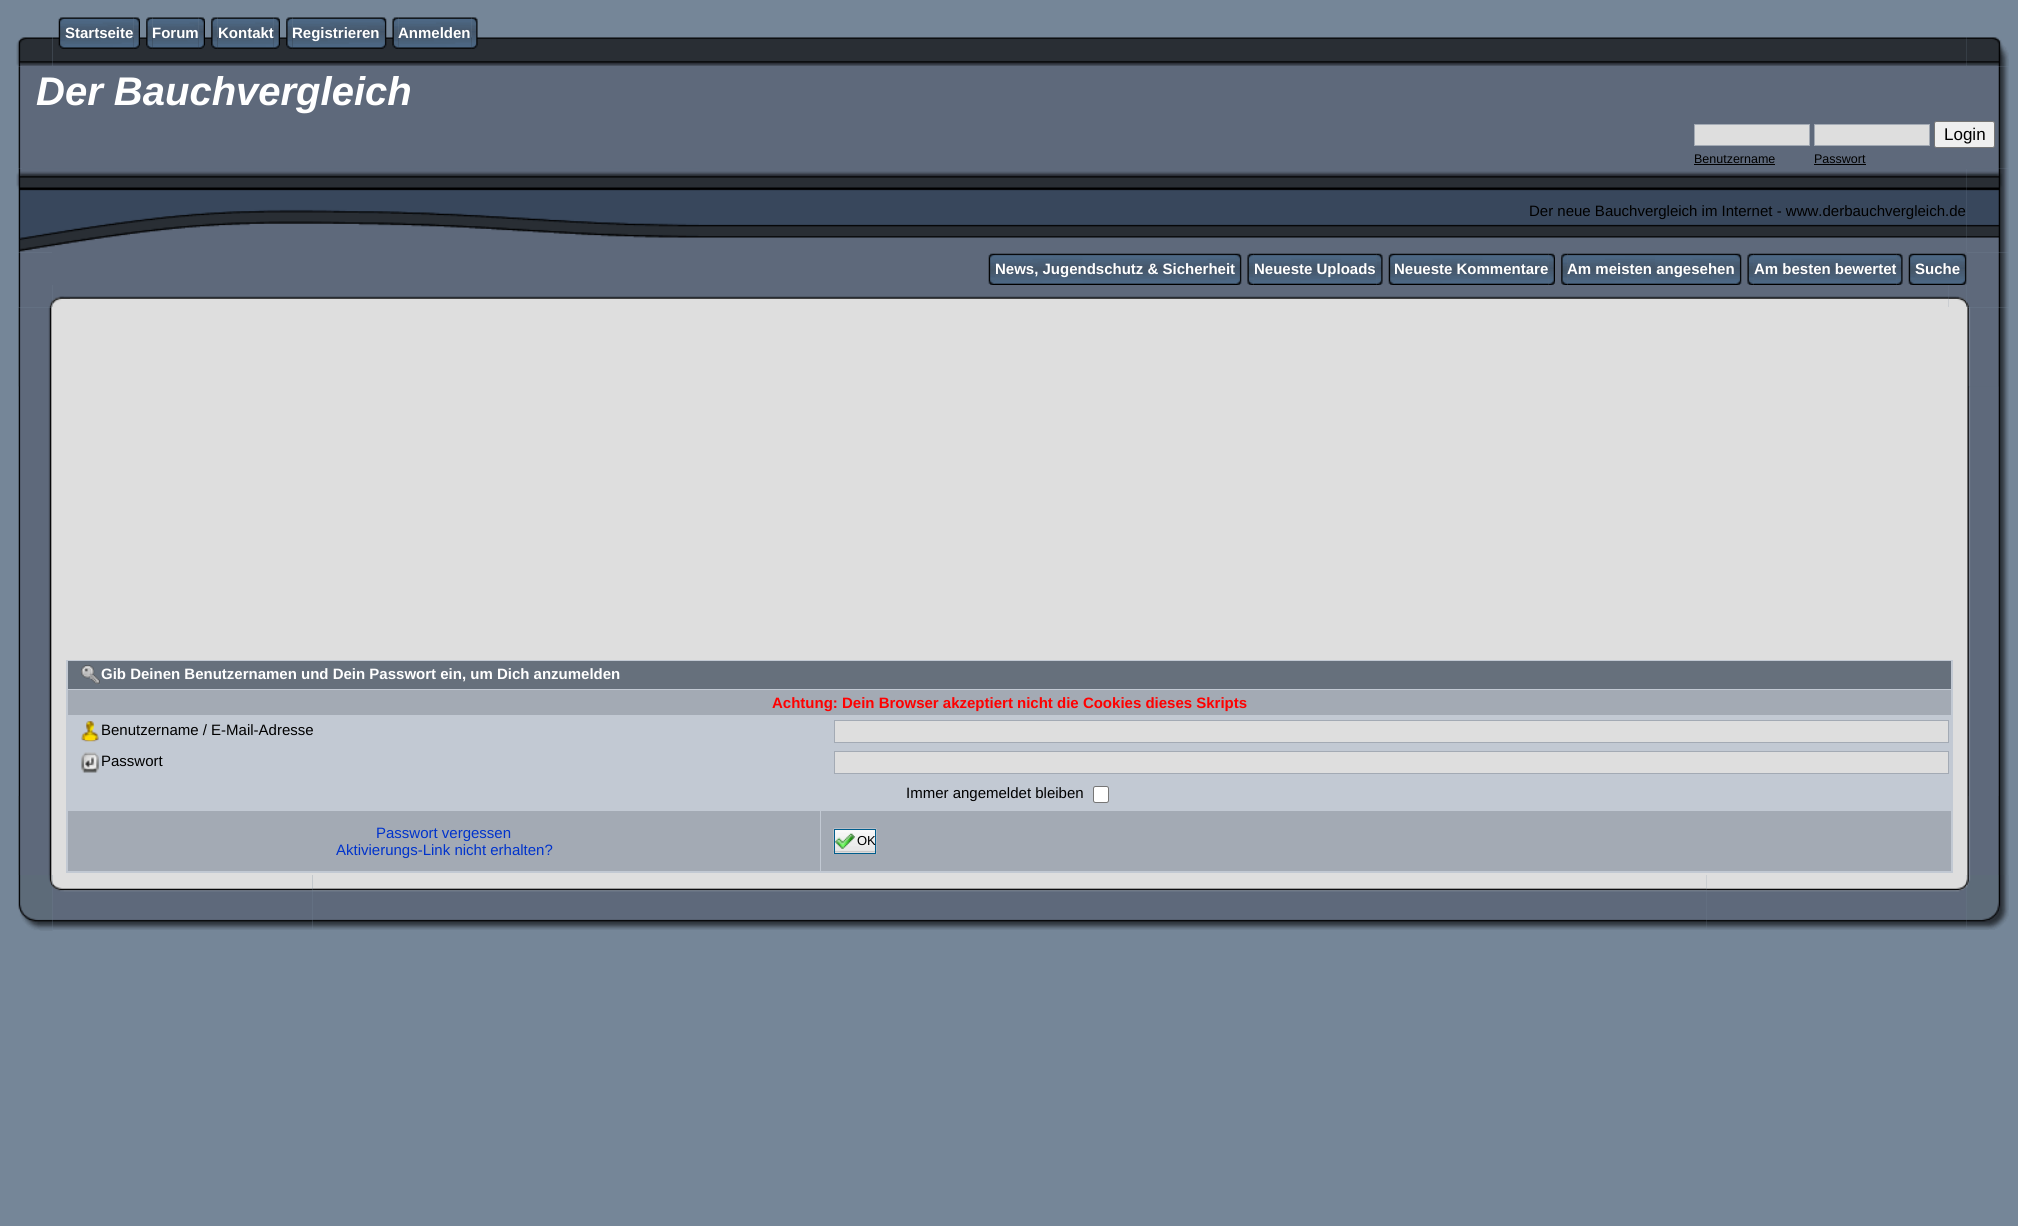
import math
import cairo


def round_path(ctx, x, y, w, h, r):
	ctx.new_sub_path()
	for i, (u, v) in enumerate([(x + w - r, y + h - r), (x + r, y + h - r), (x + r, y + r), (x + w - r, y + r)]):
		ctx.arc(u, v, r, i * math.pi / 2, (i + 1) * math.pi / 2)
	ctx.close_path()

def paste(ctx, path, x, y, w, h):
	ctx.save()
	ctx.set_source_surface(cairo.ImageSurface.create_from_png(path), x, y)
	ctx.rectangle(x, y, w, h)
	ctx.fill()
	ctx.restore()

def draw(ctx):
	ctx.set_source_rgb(0.459, 0.525, 0.596)
	ctx.paint()
	paste(ctx, 'media/15.png', 16, 37, 37, 30)
	paste(ctx, 'media/1.png', 52, 37, 1915, 29)
	paste(ctx, 'media/2.png', 58, 17, 7, 32)
	paste(ctx, 'media/3.png', 65, 17, 69, 32)
	ctx.select_font_face('Liberation Sans', cairo.FONT_SLANT_NORMAL, cairo.FONT_WEIGHT_BOLD)
	ctx.set_font_size(15)
	ctx.set_source_rgb(1, 1, 1)
	ctx.move_to(65, 38)
	ctx.show_text('Startseite')
	paste(ctx, 'media/4.png', 133, 17, 7, 32)
	paste(ctx, 'media/6.png', 152, 17, 47, 32)
	paste(ctx, 'media/5.png', 146, 17, 7, 32)
	ctx.move_to(152, 38)
	ctx.show_text('Forum')
	paste(ctx, 'media/7.png', 198, 17, 7, 32)
	paste(ctx, 'media/8.png', 217, 17, 57, 32)
	paste(ctx, 'media/5.png', 211, 17, 7, 32)
	ctx.move_to(218, 38)
	ctx.show_text('Kontakt')
	paste(ctx, 'media/9.png', 273, 17, 7, 32)
	paste(ctx, 'media/10.png', 292, 17, 88, 32)
	paste(ctx, 'media/5.png', 286, 17, 7, 32)
	ctx.move_to(292, 38)
	ctx.show_text('Registrieren')
	paste(ctx, 'media/11.png', 380, 17, 7, 32)
	paste(ctx, 'media/13.png', 398, 17, 74, 32)
	paste(ctx, 'media/12.png', 392, 17, 7, 32)
	ctx.move_to(398, 38)
	ctx.show_text('Anmelden')
	paste(ctx, 'media/14.png', 471, 17, 7, 32)
	paste(ctx, 'media/16.png', 1966, 37, 43, 30)
	paste(ctx, 'media/17.png', 18, 66, 4, 103)
	ctx.set_source_rgb(0.369, 0.412, 0.482)
	ctx.rectangle(22, 66, 1977, 103)
	ctx.fill()
	ctx.select_font_face('Liberation Sans', cairo.FONT_SLANT_ITALIC, cairo.FONT_WEIGHT_BOLD)
	ctx.set_font_size(40)
	ctx.set_source_rgb(1, 1, 1)
	ctx.move_to(36, 105)
	ctx.show_text('Der Bauchvergleich')
	ctx.set_source_rgb(0.871, 0.871, 0.871)
	ctx.rectangle(1694.5, 124.5, 115, 21)
	ctx.fill_preserve()
	ctx.set_source_rgb(0.639, 0.667, 0.706)
	ctx.set_line_width(1)
	ctx.stroke()
	ctx.set_source_rgb(0.871, 0.871, 0.871)
	ctx.rectangle(1814.5, 124.5, 115, 21)
	ctx.fill_preserve()
	ctx.set_source_rgb(0.639, 0.667, 0.706)
	ctx.stroke()
	ctx.set_source_rgb(0.937, 0.937, 0.937)
	round_path(ctx, 1934.5, 121.5, 60, 26, 2)
	ctx.fill_preserve()
	ctx.set_source_rgb(0.463, 0.463, 0.463)
	ctx.stroke()
	ctx.select_font_face('Liberation Sans')
	ctx.set_font_size(17)
	ctx.set_source_rgb(0, 0, 0)
	ctx.move_to(1944, 140)
	ctx.show_text('Login')
	ctx.set_font_size(12.5)
	ctx.move_to(1694, 163)
	ctx.show_text('Benutzername')
	ctx.rectangle(1694, 164, 81, 1)
	ctx.fill()
	ctx.move_to(1814, 163)
	ctx.show_text('Passwort')
	ctx.rectangle(1814, 164, 52, 1)
	ctx.fill()
	paste(ctx, 'media/18.png', 1998, 66, 11, 103)
	paste(ctx, 'media/19.png', 16, 168, 684, 85)
	paste(ctx, 'media/20.png', 700, 169, 1267, 83)
	ctx.set_font_size(15)
	ctx.move_to(1529, 216)
	ctx.show_text('Der neue Bauchvergleich im Internet - www.derbauchvergleich.de')
	paste(ctx, 'media/21.png', 1966, 168, 43, 85)
	paste(ctx, 'media/22.png', 18, 252, 34, 33)
	ctx.set_source_rgb(0.369, 0.412, 0.482)
	ctx.rectangle(52, 252, 1915, 33)
	ctx.fill()
	paste(ctx, 'media/23.png', 988, 253, 7, 32)
	paste(ctx, 'media/24.png', 995, 253, 240, 32)
	ctx.select_font_face('Liberation Sans', cairo.FONT_SLANT_NORMAL, cairo.FONT_WEIGHT_BOLD)
	ctx.set_source_rgb(1, 1, 1)
	ctx.move_to(995, 274)
	ctx.show_text('News, Jugendschutz & Sicherheit')
	paste(ctx, 'media/25.png', 1235, 253, 7, 32)
	paste(ctx, 'media/27.png', 1253, 253, 124, 32)
	paste(ctx, 'media/26.png', 1247, 253, 7, 32)
	ctx.move_to(1254, 274)
	ctx.show_text('Neueste Uploads')
	paste(ctx, 'media/28.png', 1376, 253, 7, 32)
	paste(ctx, 'media/23.png', 1388, 253, 7, 32)
	paste(ctx, 'media/29.png', 1395, 253, 154, 32)
	ctx.move_to(1394, 274)
	ctx.show_text('Neueste Kommentare')
	paste(ctx, 'media/30.png', 1548, 253, 7, 32)
	paste(ctx, 'media/32.png', 1567, 253, 168, 32)
	paste(ctx, 'media/31.png', 1561, 253, 7, 32)
	ctx.move_to(1567, 274)
	ctx.show_text('Am meisten angesehen')
	paste(ctx, 'media/33.png', 1735, 253, 7, 32)
	paste(ctx, 'media/34.png', 1753, 253, 144, 32)
	paste(ctx, 'media/26.png', 1747, 253, 7, 32)
	ctx.move_to(1754, 274)
	ctx.show_text('Am besten bewertet')
	paste(ctx, 'media/35.png', 1896, 253, 7, 32)
	paste(ctx, 'media/36.png', 1908, 253, 7, 32)
	paste(ctx, 'media/37.png', 1915, 253, 45, 32)
	ctx.move_to(1915, 274)
	ctx.show_text('Suche')
	paste(ctx, 'media/33.png', 1960, 253, 7, 32)
	paste(ctx, 'media/38.png', 1967, 252, 42, 33)
	paste(ctx, 'media/39.png', 18, 285, 35, 23)
	paste(ctx, 'media/40.png', 52, 285, 18, 22)
	paste(ctx, 'media/41.png', 70, 285, 1879, 22)
	paste(ctx, 'media/42.png', 1948, 285, 19, 22)
	paste(ctx, 'media/43.png', 1966, 285, 43, 23)
	paste(ctx, 'media/44.png', 18, 307, 34, 568)
	paste(ctx, 'media/45.png', 18, 386, 2, 410)
	ctx.set_source_rgb(0.871, 0.871, 0.871)
	ctx.rectangle(52, 307, 1915, 568)
	ctx.fill()
	ctx.set_source_rgb(0.761, 0.788, 0.827)
	ctx.rectangle(66, 660, 1887, 213)
	ctx.fill()
	ctx.set_source_rgb(0.4, 0.439, 0.486)
	ctx.rectangle(68, 661, 1883, 28)
	ctx.fill()
	paste(ctx, 'media/46.png', 81, 665, 19, 20)
	ctx.set_source_rgb(1, 1, 1)
	ctx.move_to(101, 679)
	ctx.show_text('Gib Deinen Benutzernamen und Dein Passwort ein, um Dich anzumelden')
	ctx.set_source_rgb(0.639, 0.667, 0.706)
	ctx.rectangle(68, 690, 1883, 25)
	ctx.fill()
	ctx.set_source_rgb(1, 0, 0)
	ctx.move_to(772, 708)
	ctx.show_text('Achtung: Dein Browser akzeptiert nicht die Cookies dieses Skripts')
	paste(ctx, 'media/47.png', 81, 721, 18, 21)
	ctx.select_font_face('Liberation Sans')
	ctx.set_source_rgb(0, 0, 0)
	ctx.move_to(101, 735)
	ctx.show_text('Benutzername / E-Mail-Adresse')
	ctx.set_source_rgb(0.871, 0.871, 0.871)
	ctx.rectangle(834.5, 720.5, 1114, 22)
	ctx.fill_preserve()
	ctx.set_source_rgb(0.639, 0.667, 0.706)
	ctx.stroke()
	paste(ctx, 'media/48.png', 81, 752, 18, 21)
	ctx.set_source_rgb(0, 0, 0)
	ctx.move_to(101, 766)
	ctx.show_text('Passwort')
	ctx.set_source_rgb(0.871, 0.871, 0.871)
	ctx.rectangle(834.5, 751.5, 1114, 22)
	ctx.fill_preserve()
	ctx.set_source_rgb(0.639, 0.667, 0.706)
	ctx.stroke()
	ctx.set_source_rgb(0, 0, 0)
	ctx.move_to(906, 798)
	ctx.show_text('Immer angemeldet bleiben')
	ctx.set_source_rgb(1, 1, 1)
	round_path(ctx, 1093.5, 786.5, 15, 16, 2)
	ctx.fill_preserve()
	ctx.set_source_rgb(0.463, 0.463, 0.463)
	ctx.stroke()
	ctx.set_source_rgb(0.639, 0.667, 0.706)
	ctx.rectangle(68, 811, 752, 60)
	ctx.fill()
	ctx.set_source_rgb(0, 0.2, 0.8)
	ctx.move_to(376, 838)
	ctx.show_text('Passwort vergessen')
	ctx.move_to(336, 855)
	ctx.show_text('Aktivierungs-Link nicht erhalten?')
	ctx.set_source_rgb(0.639, 0.667, 0.706)
	ctx.rectangle(821, 811, 1130, 60)
	ctx.fill()
	paste(ctx, 'media/49.png', 833, 828, 44, 26)
	ctx.rectangle(834.5, 829.5, 41, 24)
	ctx.set_source_rgb(0, 0.365, 0.549)
	ctx.stroke()
	paste(ctx, 'media/50.png', 835, 833, 20, 16)
	ctx.set_font_size(13)
	ctx.set_source_rgb(0, 0, 0)
	ctx.move_to(857, 845)
	ctx.show_text('OK')
	paste(ctx, 'media/51.png', 1967, 307, 42, 568)
	paste(ctx, 'media/52.png', 1968, 386, 31, 410)
	paste(ctx, 'media/53.png', 18, 875, 35, 56)
	paste(ctx, 'media/54.png', 52, 875, 261, 55)
	paste(ctx, 'media/55.png', 312, 875, 1395, 55)
	paste(ctx, 'media/56.png', 1706, 875, 261, 55)
	paste(ctx, 'media/57.png', 1966, 875, 43, 55)


surface = cairo.ImageSurface(cairo.FORMAT_RGB24, 2018, 1226)
ctx = cairo.Context(surface)
options = cairo.FontOptions()
options.set_hint_metrics(cairo.HINT_METRICS_OFF)
options.set_hint_style(cairo.HINT_STYLE_NONE)
ctx.set_font_options(options)
ctx.set_miter_limit(4)
draw(ctx)
surface.write_to_png('image.png')
